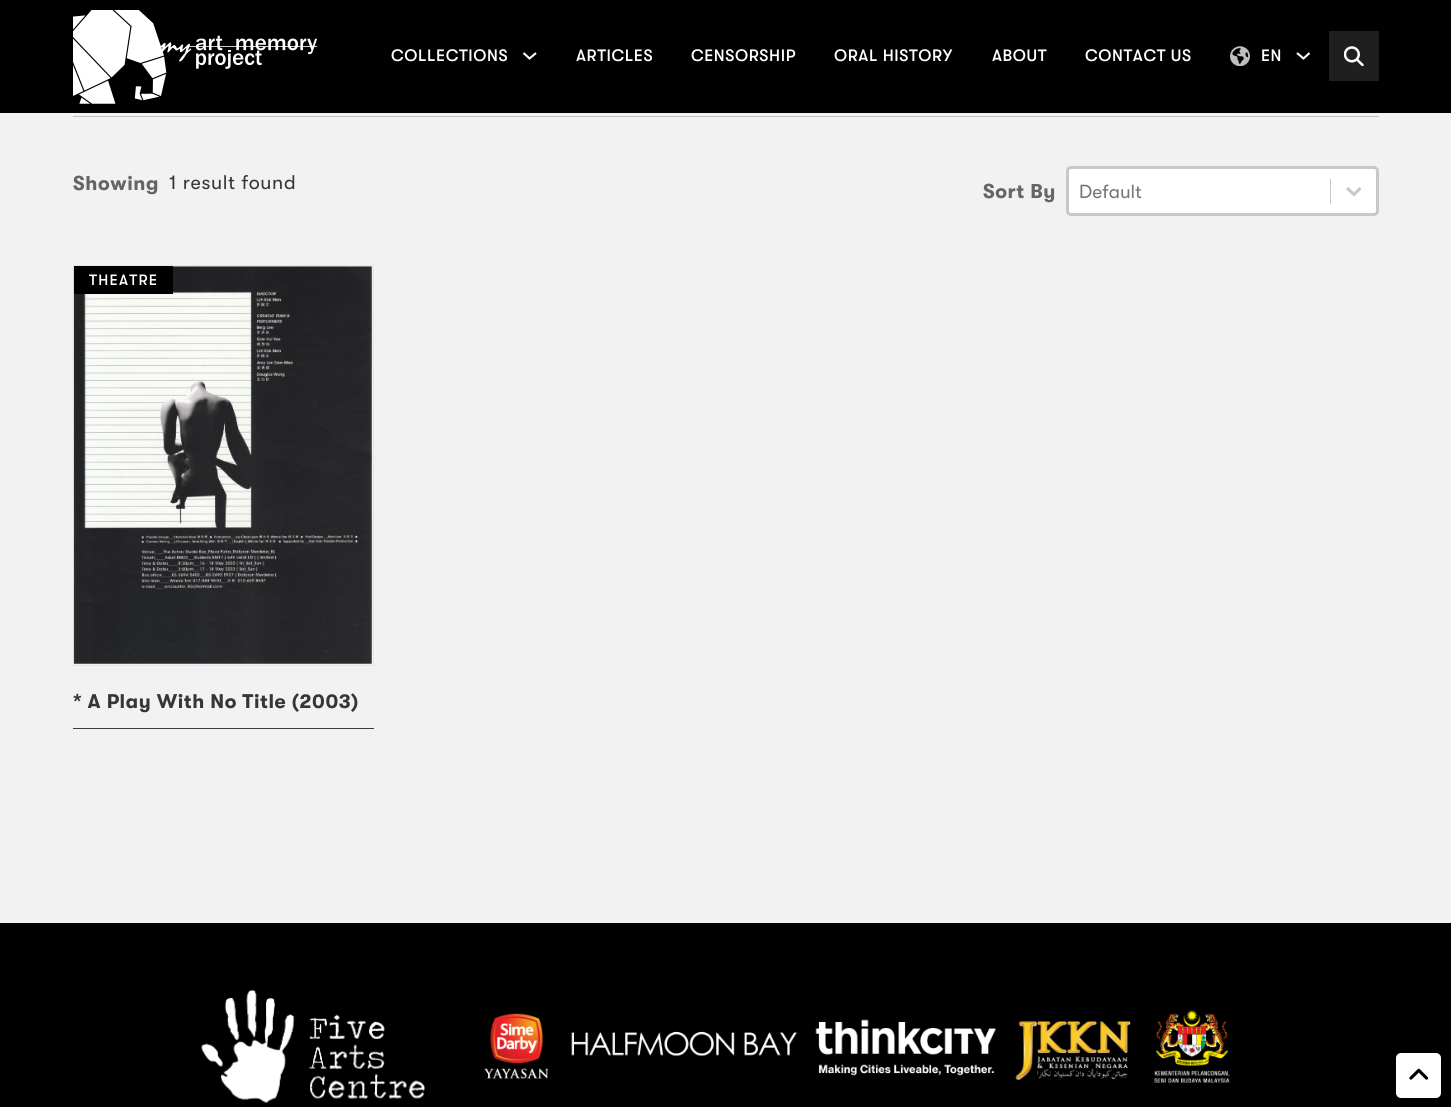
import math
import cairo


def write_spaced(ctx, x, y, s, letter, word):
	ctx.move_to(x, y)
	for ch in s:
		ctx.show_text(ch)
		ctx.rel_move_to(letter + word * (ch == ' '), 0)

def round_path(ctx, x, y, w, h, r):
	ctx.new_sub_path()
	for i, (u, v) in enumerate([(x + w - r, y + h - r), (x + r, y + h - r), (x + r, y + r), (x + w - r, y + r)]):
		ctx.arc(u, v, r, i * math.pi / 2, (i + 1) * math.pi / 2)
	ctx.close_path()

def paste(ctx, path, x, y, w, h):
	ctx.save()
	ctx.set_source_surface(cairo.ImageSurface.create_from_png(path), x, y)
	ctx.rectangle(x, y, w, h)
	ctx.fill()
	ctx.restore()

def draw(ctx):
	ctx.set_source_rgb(0.949, 0.949, 0.949)
	ctx.paint()
	ctx.set_source_rgb(0, 0, 0)
	ctx.rectangle(0, 0, 1451, 113)
	ctx.fill()
	paste(ctx, 'media/1.png', 73, 10, 245, 94)
	ctx.select_font_face('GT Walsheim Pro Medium')
	ctx.set_font_size(16.5)
	ctx.set_source_rgb(1, 1, 1)
	write_spaced(ctx, 391, 61, 'COLLECTIONS', 0.6, 0)
	ctx.new_path()
	ctx.move_to(523.5, 53)
	ctx.line_to(529.5, 58.5)
	ctx.line_to(536, 53)
	ctx.set_line_width(2.1)
	ctx.stroke()
	for x, y, s in [
		(576, 61, 'ARTICLES'),
		(691, 61, 'CENSORSHIP'),
		(834, 61, 'ORAL HISTORY'),
		(992, 61, 'ABOUT'),
		(1085, 61, 'CONTACT US'),
	]:
		write_spaced(ctx, x, y, s, 0.6, 0)
	paste(ctx, 'media/2.png', 1230, 46, 20, 20)
	write_spaced(ctx, 1261, 61, 'EN', 0.6, 0)
	ctx.new_path()
	ctx.move_to(1297, 53)
	ctx.line_to(1303.5, 58.5)
	ctx.line_to(1309.5, 53)
	ctx.stroke()
	ctx.set_source_rgb(0.122, 0.122, 0.122)
	ctx.rectangle(1329, 31, 50, 50)
	ctx.fill()
	paste(ctx, 'media/3.png', 1344, 46, 20, 20)
	ctx.set_source_rgb(0.749, 0.749, 0.749)
	ctx.rectangle(73, 116, 1306, 1)
	ctx.fill()
	ctx.select_font_face('GT Walsheim Pro', cairo.FONT_SLANT_NORMAL, cairo.FONT_WEIGHT_BOLD)
	ctx.set_font_size(20)
	ctx.set_source_rgb(0.396, 0.396, 0.396)
	write_spaced(ctx, 73, 190, 'Showing', 0.6, 0)
	ctx.select_font_face('GT Walsheim Pro')
	ctx.set_font_size(19.8)
	ctx.set_source_rgb(0.212, 0.212, 0.212)
	write_spaced(ctx, 169, 189, '1 result found', 0.6, 0)
	ctx.select_font_face('GT Walsheim Pro', cairo.FONT_SLANT_NORMAL, cairo.FONT_WEIGHT_BOLD)
	ctx.set_font_size(20)
	ctx.set_source_rgb(0.396, 0.396, 0.396)
	write_spaced(ctx, 983, 198, 'Sort By', 0.6, 0)
	ctx.set_source_rgb(1, 1, 1)
	round_path(ctx, 1067.5, 167.5, 310, 47, 3.5)
	ctx.fill_preserve()
	ctx.set_source_rgb(0.784, 0.784, 0.784)
	ctx.set_line_width(3)
	ctx.stroke()
	ctx.select_font_face('GT Walsheim Pro')
	ctx.set_font_size(19)
	ctx.set_source_rgb(0.459, 0.459, 0.459)
	ctx.move_to(1079, 198)
	ctx.show_text('Default')
	ctx.set_source_rgb(0.784, 0.784, 0.784)
	ctx.rectangle(1330, 179, 1, 25)
	ctx.fill()
	ctx.new_path()
	ctx.move_to(1354, 194.5)
	ctx.line_to(1347, 188)
	ctx.line_to(1354, 194.5)
	ctx.line_to(1360.5, 188)
	ctx.close_path()
	ctx.set_line_width(3.1)
	ctx.stroke()
	ctx.rectangle(73.5, 265.5, 300, 400)
	ctx.set_source_rgb(0.902, 0.902, 0.902)
	ctx.set_line_width(1)
	ctx.stroke()
	ctx.set_source_rgb(1, 1, 1)
	ctx.rectangle(74, 266, 299, 398)
	ctx.fill()
	paste(ctx, 'media/4.png', 73, 266, 300, 398)
	ctx.set_source_rgb(0, 0, 0)
	ctx.rectangle(74, 266, 99, 28)
	ctx.fill()
	ctx.select_font_face('GT Walsheim Pro Medium')
	ctx.set_font_size(15)
	ctx.set_source_rgb(1, 1, 1)
	write_spaced(ctx, 89, 285, 'THEATRE', 1.25, 0)
	ctx.set_source_rgb(0.235, 0.235, 0.235)
	ctx.rectangle(73, 728, 301, 1)
	ctx.fill()
	ctx.select_font_face('GT Walsheim Pro', cairo.FONT_SLANT_NORMAL, cairo.FONT_WEIGHT_BOLD)
	ctx.set_font_size(19.8)
	ctx.set_source_rgb(0.212, 0.212, 0.212)
	write_spaced(ctx, 73, 708, '* A Play With No Title (2003)', 0.6, 0)
	ctx.set_source_rgb(0, 0, 0)
	ctx.rectangle(0, 923, 1451, 184)
	ctx.fill()
	paste(ctx, 'media/5.png', 201, 990, 224, 113)
	paste(ctx, 'media/6.png', 484, 1009, 746, 74)
	ctx.set_source_rgb(1, 1, 1)
	round_path(ctx, 1396, 1053, 45, 45, 5)
	ctx.fill()
	paste(ctx, 'media/7.png', 1409, 1068, 20, 12)


surface = cairo.ImageSurface(cairo.FORMAT_RGB24, 1451, 1107)
ctx = cairo.Context(surface)
options = cairo.FontOptions()
options.set_hint_metrics(cairo.HINT_METRICS_OFF)
options.set_hint_style(cairo.HINT_STYLE_NONE)
ctx.set_font_options(options)
ctx.set_miter_limit(4)
draw(ctx)
surface.write_to_png('image.png')
